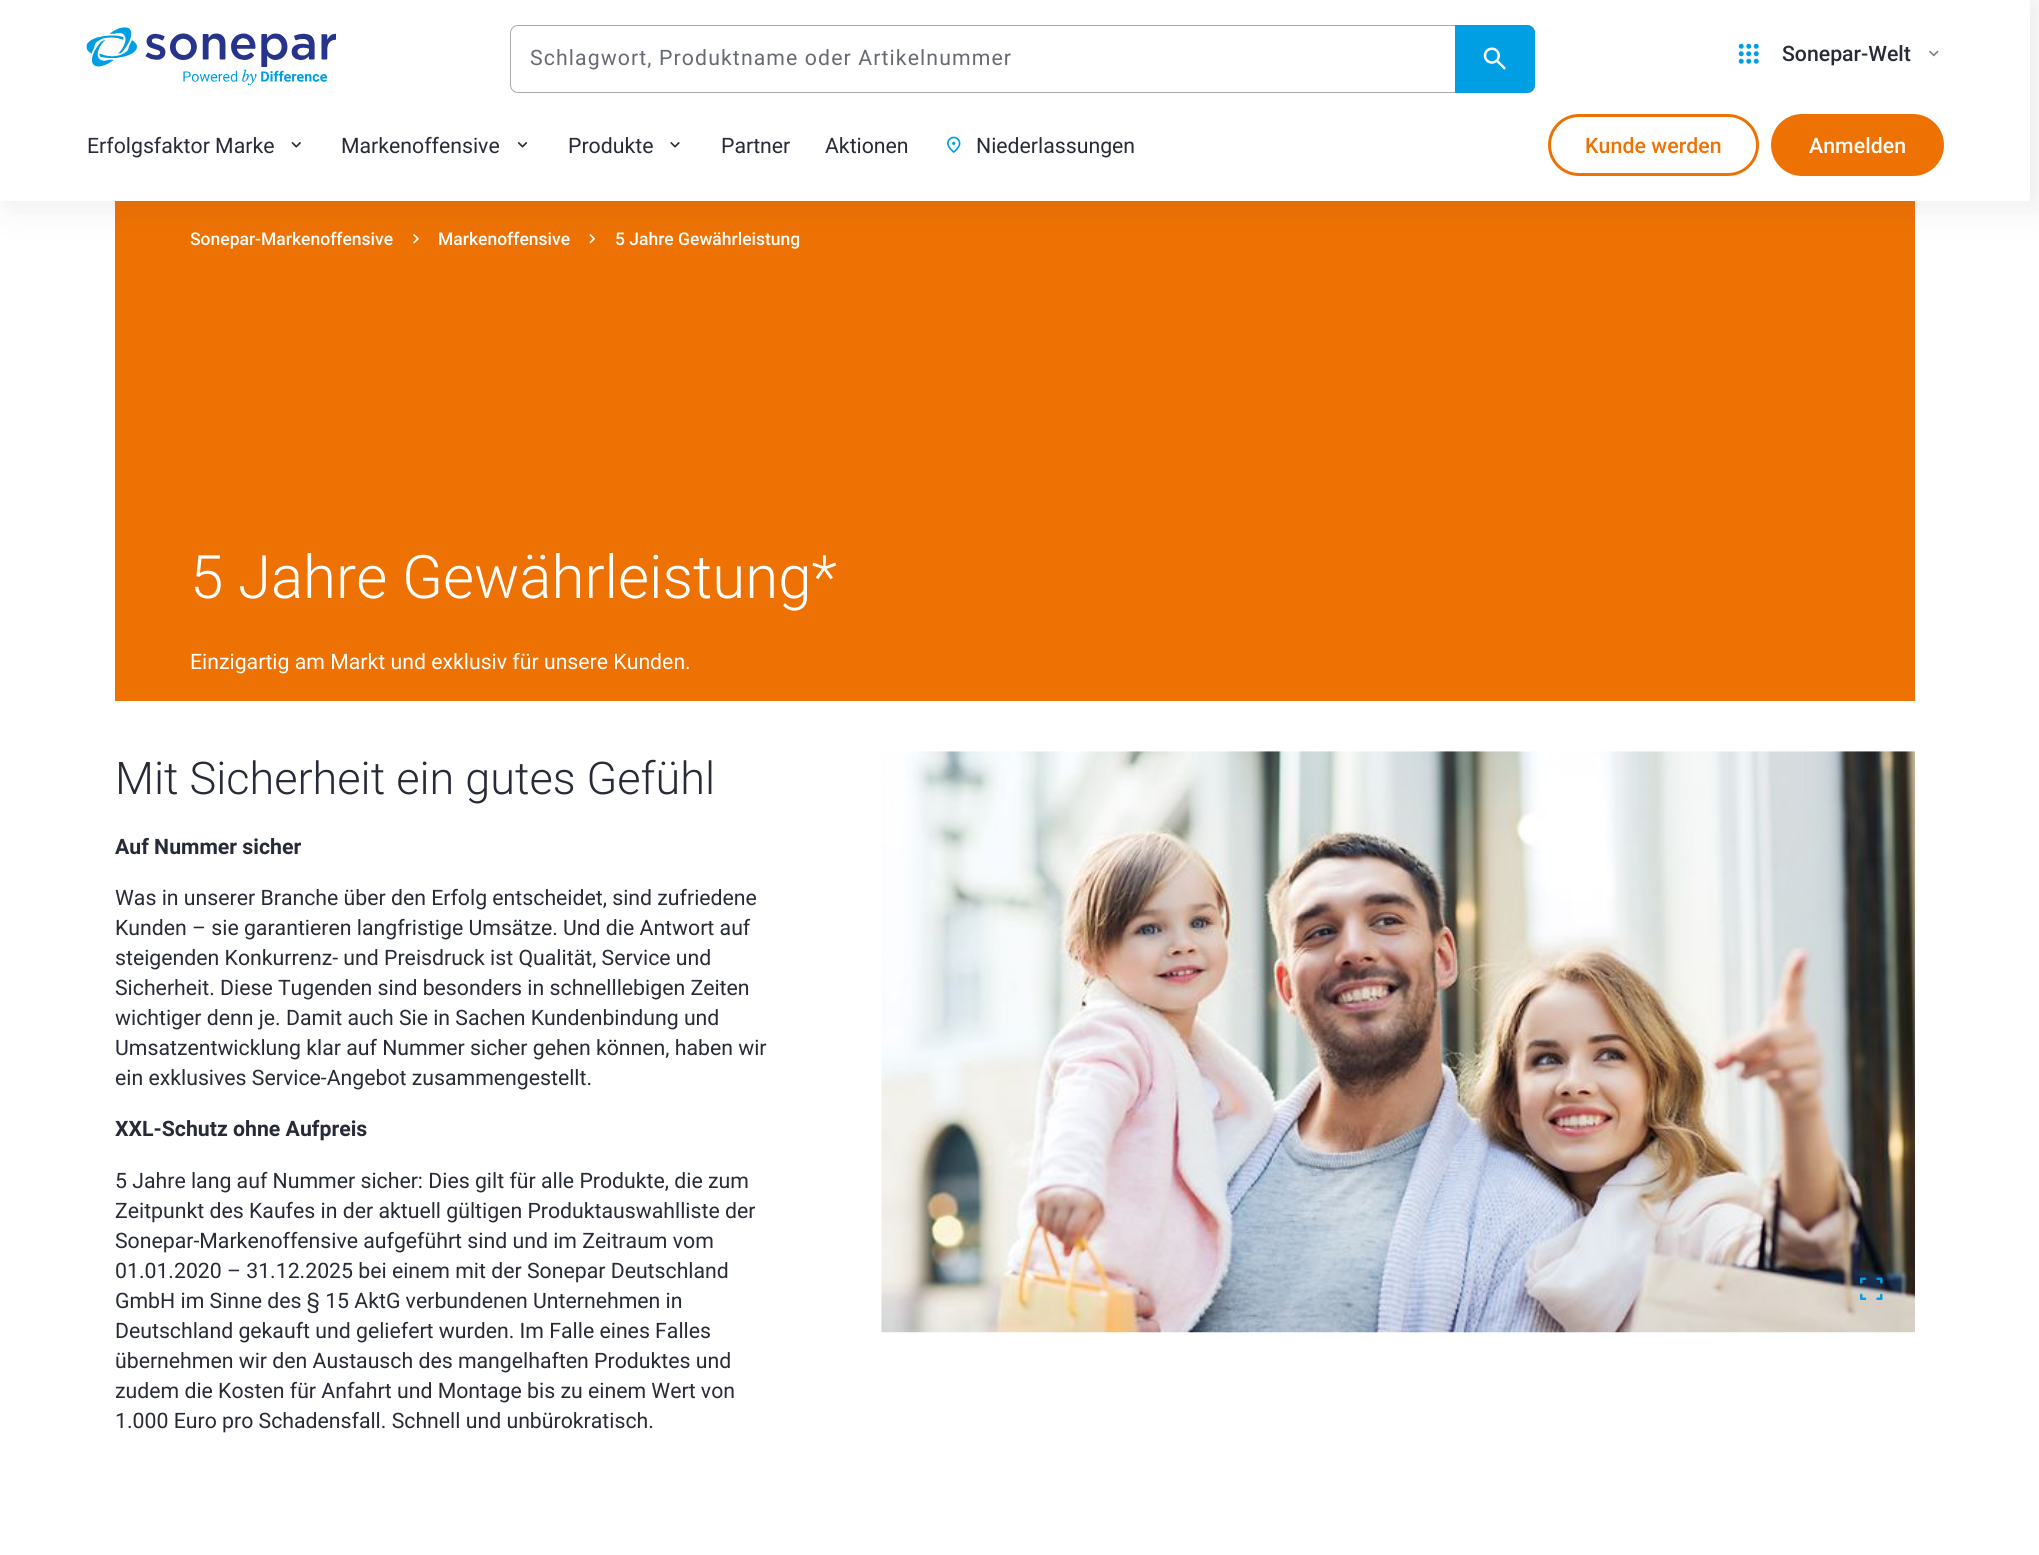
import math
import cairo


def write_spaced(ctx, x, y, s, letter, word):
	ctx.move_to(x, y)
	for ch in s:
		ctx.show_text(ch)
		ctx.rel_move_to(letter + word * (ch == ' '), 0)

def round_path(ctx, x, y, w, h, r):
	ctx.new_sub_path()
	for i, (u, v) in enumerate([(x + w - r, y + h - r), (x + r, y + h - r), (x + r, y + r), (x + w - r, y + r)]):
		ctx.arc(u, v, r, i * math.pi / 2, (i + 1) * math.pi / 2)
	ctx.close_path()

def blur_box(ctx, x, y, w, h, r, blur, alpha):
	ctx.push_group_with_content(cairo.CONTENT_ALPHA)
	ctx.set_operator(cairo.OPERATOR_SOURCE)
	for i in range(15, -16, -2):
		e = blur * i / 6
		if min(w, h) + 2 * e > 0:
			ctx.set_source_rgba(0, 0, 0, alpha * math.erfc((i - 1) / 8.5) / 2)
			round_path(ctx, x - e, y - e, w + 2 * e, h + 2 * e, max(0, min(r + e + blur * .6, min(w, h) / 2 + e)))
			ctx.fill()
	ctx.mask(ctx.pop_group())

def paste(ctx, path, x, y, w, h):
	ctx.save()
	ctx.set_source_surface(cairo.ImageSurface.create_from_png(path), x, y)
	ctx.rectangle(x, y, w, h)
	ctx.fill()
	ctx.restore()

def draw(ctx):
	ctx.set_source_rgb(1, 1, 1)
	ctx.paint()
	ctx.set_source_rgb(0.933, 0.447, 0.012)
	ctx.rectangle(115, 201, 1800, 500)
	ctx.fill()
	paste(ctx, 'media/9.png', 413, 234, 6, 10)
	paste(ctx, 'media/10.png', 589, 234, 6, 10)
	ctx.save()
	ctx.set_fill_rule(cairo.FILL_RULE_EVEN_ODD)
	ctx.new_path()
	ctx.move_to(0, 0)
	ctx.line_to(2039, 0)
	ctx.line_to(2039, 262)
	ctx.line_to(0, 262)
	ctx.close_path()
	ctx.move_to(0, 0)
	ctx.line_to(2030, 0)
	ctx.line_to(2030, 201)
	ctx.line_to(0, 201)
	ctx.close_path()
	ctx.clip()
	ctx.set_source_rgb(0.153, 0.165, 0.216)
	blur_box(ctx, 10, 3, 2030, 201, 0, 19, 0.1)
	ctx.restore()
	paste(ctx, 'media/1.png', 86, 27, 250, 59)
	round_path(ctx, 510.5, 25.5, 1024, 67, 7.5)
	ctx.set_source_rgb(0.663, 0.667, 0.686)
	ctx.set_line_width(1)
	ctx.stroke()
	ctx.select_font_face('Roboto')
	ctx.set_font_size(21.25)
	ctx.set_source_rgb(0.408, 0.416, 0.451)
	write_spaced(ctx, 530, 65, 'Schlagwort, Produktname oder Artikelnummer', 1.1, 0)
	ctx.set_source_rgb(0, 0.62, 0.89)
	ctx.new_path()
	ctx.move_to(1455, 25)
	ctx.line_to(1527, 25)
	ctx.curve_to(1531.5, 25, 1535, 28.5, 1535, 33)
	ctx.line_to(1535, 85)
	ctx.curve_to(1535, 89.5, 1531.5, 93, 1527, 93)
	ctx.line_to(1455, 93)
	ctx.close_path()
	ctx.fill()
	paste(ctx, 'media/2.png', 1483, 47, 23, 23)
	paste(ctx, 'media/3.png', 1738, 43, 21, 21)
	ctx.select_font_face('Roboto Medium')
	ctx.set_source_rgb(0.153, 0.165, 0.216)
	ctx.move_to(1782, 61)
	ctx.show_text('Sonepar-Welt')
	paste(ctx, 'media/4.png', 1929, 50, 10, 7)
	ctx.select_font_face('Roboto')
	ctx.move_to(87, 153)
	ctx.show_text('Erfolgsfaktor Marke')
	paste(ctx, 'media/5.png', 291, 142, 10, 6)
	ctx.move_to(341, 153)
	ctx.show_text('Markenoffensive')
	paste(ctx, 'media/6.png', 517, 142, 11, 6)
	ctx.move_to(568, 153)
	ctx.show_text('Produkte')
	paste(ctx, 'media/7.png', 670, 142, 10, 6)
	ctx.move_to(721, 153)
	ctx.show_text('Partner')
	ctx.move_to(825, 153)
	ctx.show_text('Aktionen')
	paste(ctx, 'media/8.png', 947, 136, 14, 17)
	ctx.move_to(976, 153)
	ctx.show_text('Niederlassungen')
	round_path(ctx, 1549.5, 115.5, 208, 59, 29.5)
	ctx.set_source_rgb(0.933, 0.447, 0.012)
	ctx.set_line_width(3)
	ctx.stroke()
	ctx.select_font_face('Roboto Medium')
	write_spaced(ctx, 1585, 153, 'Kunde werden', 0.1, 0)
	round_path(ctx, 1771, 114, 173, 62, 31)
	ctx.fill()
	ctx.set_source_rgb(1, 1, 1)
	write_spaced(ctx, 1809, 153, 'Anmelden', 0.1, 0)
	ctx.save()
	ctx.rectangle(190, 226, 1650, 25)
	ctx.clip()
	ctx.set_source_rgb(0.933, 0.447, 0.012)
	blur_box(ctx, 140, 216, 45, 45, 0, 5, 1)
	ctx.restore()
	ctx.set_font_size(17.5)
	for x, y, s in [
		(190, 245, 'Sonepar-Markenoffensive'),
		(438, 245, 'Markenoffensive'),
		(615, 245, '5 Jahre Gewährleistung'),
	]:
		ctx.move_to(x, y)
		ctx.show_text(s)
	ctx.select_font_face('Roboto Light')
	ctx.set_font_size(60)
	ctx.move_to(190, 598)
	ctx.show_text('5 Jahre Gewährleistung*')
	ctx.select_font_face('Roboto')
	ctx.set_font_size(21.25)
	ctx.move_to(190, 669)
	ctx.show_text('Einzigartig am Markt und exklusiv für unsere Kunden.')
	ctx.select_font_face('Roboto Light')
	ctx.set_font_size(45)
	ctx.set_source_rgb(0.153, 0.165, 0.216)
	ctx.move_to(115, 794)
	ctx.show_text('Mit Sicherheit ein gutes Gefühl')
	ctx.select_font_face('Roboto', cairo.FONT_SLANT_NORMAL, cairo.FONT_WEIGHT_BOLD)
	ctx.set_font_size(21.25)
	ctx.move_to(115, 854)
	ctx.show_text('Auf Nummer sicher')
	ctx.select_font_face('Roboto')
	for x, y, s in [
		(115, 905, 'Was in unserer Branche über den Erfolg entscheidet, sind zufriedene'),
		(115, 935, 'Kunden – sie garantieren langfristige Umsätze. Und die Antwort auf'),
		(115, 965, 'steigenden Konkurrenz- und Preisdruck ist Qualität, Service und'),
		(115, 995, 'Sicherheit. Diese Tugenden sind besonders in schnelllebigen Zeiten'),
		(115, 1025, 'wichtiger denn je. Damit auch Sie in Sachen Kundenbindung und'),
		(115, 1055, 'Umsatzentwicklung klar auf Nummer sicher gehen können, haben wir'),
		(115, 1085, 'ein exklusives Service-Angebot zusammengestellt.'),
	]:
		ctx.move_to(x, y)
		ctx.show_text(s)
	ctx.select_font_face('Roboto', cairo.FONT_SLANT_NORMAL, cairo.FONT_WEIGHT_BOLD)
	ctx.move_to(115, 1136)
	ctx.show_text('XXL-Schutz ohne Aufpreis')
	ctx.select_font_face('Roboto')
	for x, y, s in [
		(115, 1188, '5 Jahre lang auf Nummer sicher: Dies gilt für alle Produkte, die zum'),
		(115, 1218, 'Zeitpunkt des Kaufes in der aktuell gültigen Produktauswahlliste der'),
		(115, 1248, 'Sonepar-Markenoffensive aufgeführt sind und im Zeitraum vom'),
		(115, 1278, '01.01.2020 – 31.12.2025 bei einem mit der Sonepar Deutschland'),
		(115, 1308, 'GmbH im Sinne des § 15 AktG verbundenen Unternehmen in'),
		(115, 1338, 'Deutschland gekauft und geliefert wurden. Im Falle eines Falles'),
		(115, 1368, 'übernehmen wir den Austausch des mangelhaften Produktes und'),
		(115, 1398, 'zudem die Kosten für Anfahrt und Montage bis zu einem Wert von'),
		(115, 1428, '1.000 Euro pro Schadensfall. Schnell und unbürokratisch.'),
	]:
		ctx.move_to(x, y)
		ctx.show_text(s)
	paste(ctx, 'media/11.png', 881, 751, 1034, 582)
	paste(ctx, 'media/12.png', 1860, 1277, 23, 23)


surface = cairo.ImageSurface(cairo.FORMAT_RGB24, 2039, 1555)
ctx = cairo.Context(surface)
options = cairo.FontOptions()
options.set_hint_metrics(cairo.HINT_METRICS_OFF)
options.set_hint_style(cairo.HINT_STYLE_NONE)
ctx.set_font_options(options)
ctx.set_miter_limit(4)
draw(ctx)
surface.write_to_png('image.png')
